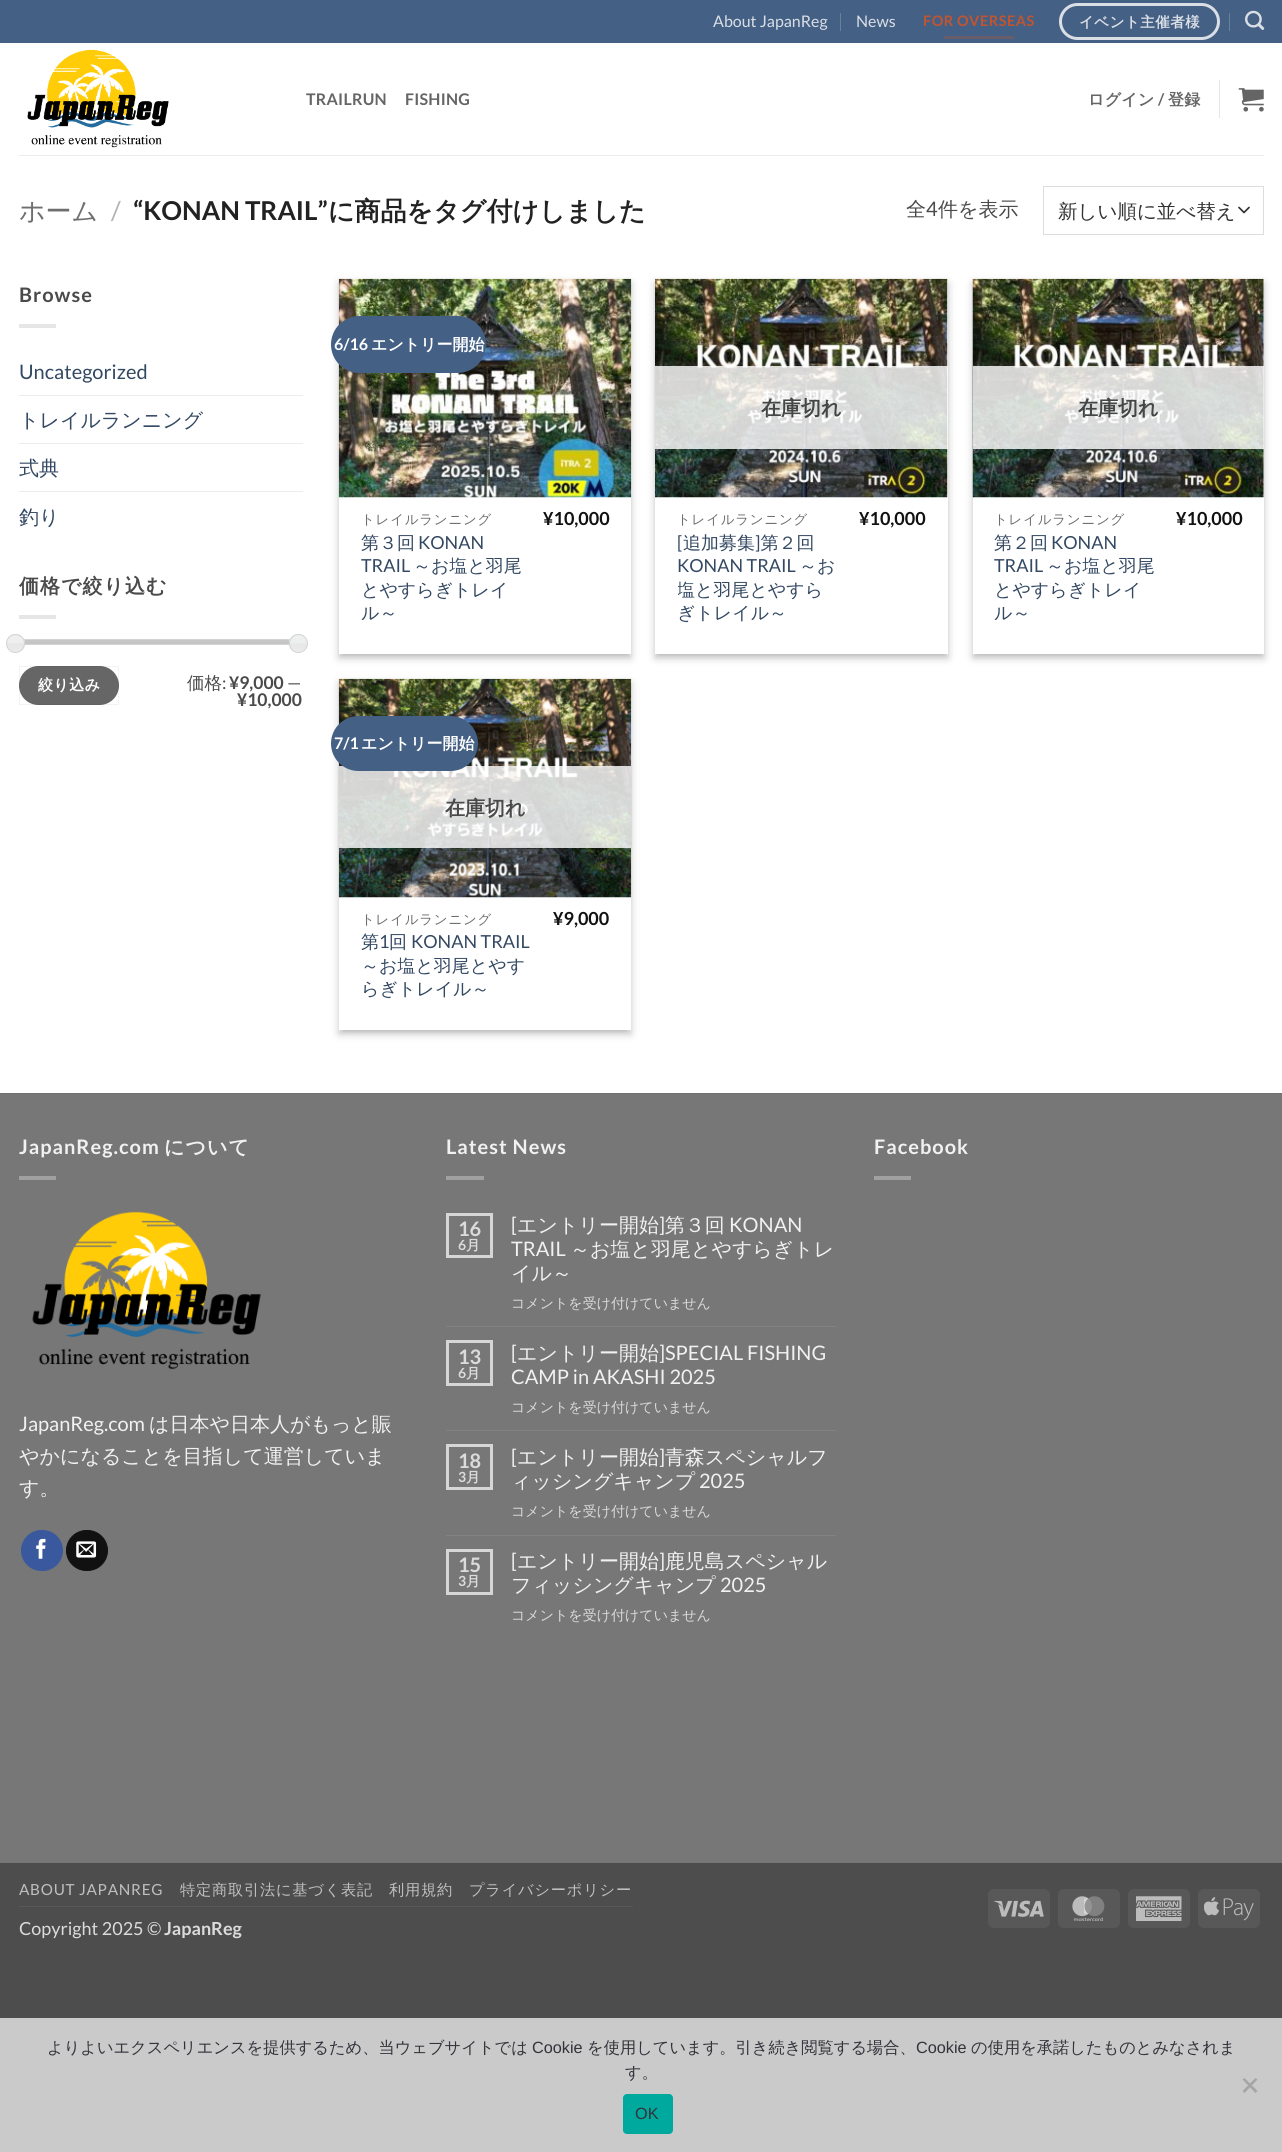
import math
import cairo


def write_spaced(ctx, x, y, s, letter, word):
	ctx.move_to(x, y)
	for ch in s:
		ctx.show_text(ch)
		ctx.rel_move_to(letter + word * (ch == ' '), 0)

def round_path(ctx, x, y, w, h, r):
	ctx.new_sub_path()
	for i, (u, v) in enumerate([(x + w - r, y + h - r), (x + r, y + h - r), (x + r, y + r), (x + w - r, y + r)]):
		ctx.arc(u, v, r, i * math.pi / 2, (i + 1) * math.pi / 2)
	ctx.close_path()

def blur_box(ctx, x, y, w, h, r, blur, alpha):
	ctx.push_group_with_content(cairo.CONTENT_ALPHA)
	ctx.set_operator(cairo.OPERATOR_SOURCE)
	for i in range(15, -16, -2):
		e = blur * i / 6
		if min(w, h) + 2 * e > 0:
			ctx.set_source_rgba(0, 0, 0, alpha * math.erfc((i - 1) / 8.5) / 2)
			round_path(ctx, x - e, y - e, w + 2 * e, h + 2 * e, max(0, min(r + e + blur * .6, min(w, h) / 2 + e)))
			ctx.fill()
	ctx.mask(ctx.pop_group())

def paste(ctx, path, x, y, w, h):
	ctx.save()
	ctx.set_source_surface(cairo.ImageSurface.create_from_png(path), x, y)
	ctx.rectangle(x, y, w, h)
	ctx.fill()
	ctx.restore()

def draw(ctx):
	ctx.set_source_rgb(0.302, 0.302, 0.302)
	ctx.paint()
	ctx.set_source_rgb(1, 1, 1)
	ctx.rectangle(0, 43, 1282, 1050)
	ctx.fill()
	ctx.set_source_rgb(0.267, 0.376, 0.518)
	ctx.rectangle(0, 0, 1282, 43)
	ctx.fill()
	ctx.select_font_face('Lato')
	ctx.set_font_size(16)
	ctx.set_source_rgb(0.855, 0.875, 0.902)
	ctx.move_to(713, 27)
	ctx.show_text('About JapanReg')
	ctx.set_source_rgb(0.412, 0.502, 0.616)
	ctx.rectangle(840, 13, 1, 18)
	ctx.fill()
	ctx.set_source_rgb(0.855, 0.875, 0.902)
	ctx.move_to(856, 27)
	ctx.show_text('News')
	ctx.select_font_face('Lato', cairo.FONT_SLANT_NORMAL, cairo.FONT_WEIGHT_BOLD)
	ctx.set_font_size(14.5)
	ctx.set_source_rgb(0.753, 0.333, 0.188)
	write_spaced(ctx, 923, 26, 'FOR OVERSEAS', 0.5, 0)
	ctx.set_source_rgb(0.412, 0.365, 0.42)
	ctx.rectangle(944, 36, 70, 3)
	ctx.fill()
	round_path(ctx, 1060.5, 4.5, 158, 34, 17)
	ctx.set_source_rgb(0.855, 0.875, 0.902)
	ctx.set_line_width(3)
	ctx.stroke()
	ctx.select_font_face('WenQuanYi Zen Hei', cairo.FONT_SLANT_NORMAL, cairo.FONT_WEIGHT_BOLD)
	write_spaced(ctx, 1079, 27, 'イベント主催者様', 0.5, 0)
	ctx.set_source_rgb(0.412, 0.502, 0.616)
	ctx.rectangle(1229, 13, 1, 18)
	ctx.fill()
	paste(ctx, 'media/1.png', 1245, 10, 20, 20)
	paste(ctx, 'media/2.png', 27, 49, 142, 99)
	ctx.select_font_face('Lato', cairo.FONT_SLANT_NORMAL, cairo.FONT_WEIGHT_BOLD)
	ctx.set_font_size(16)
	ctx.set_source_rgb(0.396, 0.396, 0.396)
	write_spaced(ctx, 306, 105, 'TRAILRUN', 0.25, 0)
	write_spaced(ctx, 405, 105, 'FISHING', 0.25, 0)
	ctx.select_font_face('WenQuanYi Zen Hei', cairo.FONT_SLANT_NORMAL, cairo.FONT_WEIGHT_BOLD)
	write_spaced(ctx, 1088, 105, 'ログイン', 0.25, 0)
	ctx.select_font_face('Lato', cairo.FONT_SLANT_NORMAL, cairo.FONT_WEIGHT_BOLD)
	write_spaced(ctx, 1158, 105, '/', 0.25, 0)
	ctx.select_font_face('WenQuanYi Zen Hei', cairo.FONT_SLANT_NORMAL, cairo.FONT_WEIGHT_BOLD)
	write_spaced(ctx, 1168, 105, '登録', 0.25, 0)
	ctx.set_source_rgb(0.902, 0.902, 0.902)
	ctx.rectangle(1219, 80, 1, 38)
	ctx.fill()
	paste(ctx, 'media/3.png', 1238, 88, 26, 24)
	ctx.set_source_rgb(0.929, 0.929, 0.929)
	ctx.rectangle(19, 155, 1245, 1)
	ctx.fill()
	ctx.select_font_face('WenQuanYi Zen Hei Medium')
	ctx.set_font_size(26)
	ctx.set_source_rgb(0.431, 0.431, 0.431)
	ctx.move_to(19, 220)
	ctx.show_text('ホーム')
	ctx.select_font_face('Lato')
	ctx.set_source_rgb(0.698, 0.698, 0.698)
	ctx.move_to(111, 220)
	ctx.show_text('/')
	ctx.select_font_face('Lato', cairo.FONT_SLANT_NORMAL, cairo.FONT_WEIGHT_BOLD)
	ctx.set_source_rgb(0.133, 0.133, 0.133)
	ctx.move_to(133, 220)
	ctx.show_text('“KONAN TRAIL”')
	ctx.select_font_face('WenQuanYi Zen Hei', cairo.FONT_SLANT_NORMAL, cairo.FONT_WEIGHT_BOLD)
	ctx.move_to(328, 220)
	ctx.show_text('に商品をタグ付けしました')
	ctx.select_font_face('WenQuanYi Zen Hei Medium')
	ctx.set_font_size(20)
	ctx.set_source_rgb(0.29, 0.29, 0.29)
	ctx.move_to(906, 216)
	ctx.show_text('全')
	ctx.select_font_face('Lato')
	ctx.move_to(926, 216)
	ctx.show_text('4')
	ctx.select_font_face('WenQuanYi Zen Hei Medium')
	ctx.move_to(938, 216)
	ctx.show_text('件を表示')
	ctx.new_path()
	ctx.move_to(1239, 207.5)
	ctx.line_to(1244, 212.5)
	ctx.line_to(1249, 207.5)
	ctx.set_source_rgb(0.2, 0.2, 0.2)
	ctx.set_line_width(1.7)
	ctx.set_line_cap(cairo.LINE_CAP_ROUND)
	ctx.set_line_join(cairo.LINE_JOIN_ROUND)
	ctx.stroke()
	ctx.rectangle(1043.5, 186.5, 220, 48)
	ctx.set_source_rgb(0.867, 0.867, 0.867)
	ctx.set_line_width(1)
	ctx.set_line_cap(cairo.LINE_CAP_BUTT)
	ctx.set_line_join(cairo.LINE_JOIN_MITER)
	ctx.stroke()
	ctx.set_font_size(19.5)
	ctx.set_source_rgb(0.2, 0.2, 0.2)
	ctx.move_to(1058, 218)
	ctx.show_text('新しい順に並べ替え')
	ctx.select_font_face('Lato', cairo.FONT_SLANT_NORMAL, cairo.FONT_WEIGHT_BOLD)
	ctx.set_font_size(20)
	ctx.set_source_rgb(0.29, 0.29, 0.29)
	write_spaced(ctx, 19, 302, 'Browse', 1, 0)
	ctx.set_source_rgb(0.902, 0.902, 0.902)
	ctx.rectangle(19, 324, 37, 4)
	ctx.fill()
	ctx.select_font_face('Lato')
	ctx.set_source_rgb(0.2, 0.282, 0.384)
	ctx.move_to(19, 379)
	ctx.show_text('Uncategorized')
	ctx.set_source_rgb(0.925, 0.925, 0.925)
	ctx.rectangle(19, 395, 284, 1)
	ctx.fill()
	ctx.select_font_face('WenQuanYi Zen Hei Medium')
	ctx.set_source_rgb(0.2, 0.282, 0.384)
	ctx.move_to(19, 427)
	ctx.show_text('トレイルランニング')
	ctx.set_source_rgb(0.925, 0.925, 0.925)
	ctx.rectangle(19, 443, 284, 1)
	ctx.fill()
	ctx.set_source_rgb(0.2, 0.282, 0.384)
	ctx.move_to(19, 475)
	ctx.show_text('式典')
	ctx.set_source_rgb(0.925, 0.925, 0.925)
	ctx.rectangle(19, 491, 284, 1)
	ctx.fill()
	ctx.set_source_rgb(0.2, 0.282, 0.384)
	ctx.move_to(19, 524)
	ctx.show_text('釣り')
	ctx.select_font_face('WenQuanYi Zen Hei', cairo.FONT_SLANT_NORMAL, cairo.FONT_WEIGHT_BOLD)
	ctx.set_source_rgb(0.29, 0.29, 0.29)
	write_spaced(ctx, 19, 593, '価格で絞り込む', 1, 0)
	ctx.set_source_rgb(0.902, 0.902, 0.902)
	ctx.rectangle(19, 615, 37, 4)
	ctx.fill()
	ctx.set_source_rgb(0.945, 0.945, 0.945)
	ctx.rectangle(19, 640, 271, 4)
	ctx.fill()
	ctx.rectangle(19.5, 639.5, 283, 5)
	ctx.set_source_rgb(0.827, 0.827, 0.827)
	ctx.stroke()
	ctx.set_source_rgba(0.4, 0.4, 0.4, 0.5)
	ctx.rectangle(20, 640, 270, 4)
	ctx.fill()
	ctx.set_source_rgba(0.89, 0.89, 0.89, 0.5)
	ctx.rectangle(20, 640, 270, 4)
	ctx.fill()
	paste(ctx, 'media/4.png', 6, 634, 19, 19)
	ctx.arc(15.5, 643.5, 9, 0, 2 * math.pi)
	ctx.set_source_rgb(0.827, 0.827, 0.827)
	ctx.stroke()
	paste(ctx, 'media/5.png', 289, 634, 19, 19)
	ctx.arc(298.5, 643.5, 9, 0, 2 * math.pi)
	ctx.stroke()
	ctx.set_source_rgb(0.4, 0.4, 0.4)
	round_path(ctx, 19, 666, 100, 39, 19.5)
	ctx.fill()
	ctx.rectangle(19.5, 666.5, 99, 38)
	ctx.set_source_rgba(0, 0, 0, 0.05)
	ctx.stroke()
	ctx.set_font_size(15)
	ctx.set_source_rgb(1, 1, 1)
	write_spaced(ctx, 38, 690, '絞り込み', 0.5, 0)
	ctx.select_font_face('WenQuanYi Zen Hei Medium')
	ctx.set_font_size(17.5)
	ctx.set_source_rgb(0.29, 0.29, 0.29)
	ctx.move_to(187, 689)
	ctx.show_text('価格')
	ctx.select_font_face('Lato')
	ctx.move_to(222, 689)
	ctx.show_text(':')
	ctx.select_font_face('Lato', cairo.FONT_SLANT_NORMAL, cairo.FONT_WEIGHT_BOLD)
	ctx.move_to(229, 689)
	ctx.show_text('¥9,000')
	ctx.select_font_face('Lato')
	ctx.move_to(287, 689)
	ctx.show_text('—')
	ctx.select_font_face('Lato', cairo.FONT_SLANT_NORMAL, cairo.FONT_WEIGHT_BOLD)
	ctx.move_to(237, 706)
	ctx.show_text('¥10,000')
	ctx.set_source_rgb(0, 0, 0)
	blur_box(ctx, 339, 283, 292, 375, 0, 4, 0.23)
	blur_box(ctx, 344, 288, 282, 365, 0, 4, 0.16)
	ctx.set_source_rgb(1, 1, 1)
	ctx.rectangle(339, 497, 292, 157)
	ctx.fill()
	paste(ctx, 'media/6.png', 338, 278, 294, 220)
	ctx.set_source_rgb(0.267, 0.376, 0.518)
	round_path(ctx, 331, 316, 155, 57, 28.5)
	ctx.fill()
	ctx.set_font_size(16)
	ctx.set_source_rgb(1, 1, 1)
	ctx.move_to(334, 350)
	ctx.show_text('6/16')
	ctx.select_font_face('WenQuanYi Zen Hei', cairo.FONT_SLANT_NORMAL, cairo.FONT_WEIGHT_BOLD)
	ctx.move_to(371, 350)
	ctx.show_text('エントリー開始')
	ctx.select_font_face('WenQuanYi Zen Hei Medium')
	ctx.set_font_size(13.5)
	ctx.set_source_rgb(0.431, 0.431, 0.431)
	write_spaced(ctx, 361, 524, 'トレイルランニング', 0.75, 0)
	ctx.set_font_size(18)
	ctx.set_source_rgb(0.2, 0.282, 0.384)
	ctx.move_to(361, 549)
	ctx.show_text('第３回')
	ctx.select_font_face('Lato')
	ctx.move_to(418, 549)
	ctx.show_text('KONAN')
	ctx.move_to(361, 572)
	ctx.show_text('TRAIL')
	ctx.select_font_face('WenQuanYi Zen Hei Medium')
	for x, y, s in [
		(413, 572, '～お塩と羽尾'),
		(361, 596, 'とやすらぎトレイ'),
		(361, 619, 'ル～'),
	]:
		ctx.move_to(x, y)
		ctx.show_text(s)
	ctx.select_font_face('Lato', cairo.FONT_SLANT_NORMAL, cairo.FONT_WEIGHT_BOLD)
	ctx.set_source_rgb(0.067, 0.067, 0.067)
	ctx.move_to(543, 525)
	ctx.show_text('¥10,000')
	ctx.set_source_rgb(0, 0, 0)
	blur_box(ctx, 655, 283, 293, 375, 0, 4, 0.23)
	blur_box(ctx, 660, 288, 283, 365, 0, 4, 0.16)
	ctx.set_source_rgb(1, 1, 1)
	ctx.rectangle(655, 279, 293, 375)
	ctx.fill()
	paste(ctx, 'media/7.png', 655, 278, 293, 220)
	ctx.set_source_rgba(1, 1, 1, 0.81)
	ctx.rectangle(655, 366, 293, 83)
	ctx.fill()
	ctx.select_font_face('WenQuanYi Zen Hei', cairo.FONT_SLANT_NORMAL, cairo.FONT_WEIGHT_BOLD)
	ctx.set_font_size(20)
	ctx.set_source_rgb(0.267, 0.271, 0.271)
	ctx.move_to(761, 415)
	ctx.show_text('在庫切れ')
	ctx.select_font_face('WenQuanYi Zen Hei Medium')
	ctx.set_font_size(13.5)
	ctx.set_source_rgb(0.431, 0.431, 0.431)
	write_spaced(ctx, 677, 524, 'トレイルランニング', 0.75, 0)
	ctx.select_font_face('Lato')
	ctx.set_font_size(18)
	ctx.set_source_rgb(0.2, 0.282, 0.384)
	ctx.move_to(677, 549)
	ctx.show_text('[')
	ctx.select_font_face('WenQuanYi Zen Hei Medium')
	ctx.move_to(683, 549)
	ctx.show_text('追加募集 第２回')
	ctx.select_font_face('Lato')
	ctx.move_to(755, 549)
	ctx.show_text(']')
	ctx.move_to(677, 572)
	ctx.show_text('KONAN TRAIL')
	ctx.select_font_face('WenQuanYi Zen Hei Medium')
	ctx.move_to(799, 572)
	ctx.show_text('～お')
	ctx.save()
	ctx.rectangle(678, 510, 181, 119)
	ctx.clip()
	ctx.move_to(677, 596)
	ctx.show_text('塩と羽尾とやすら')
	ctx.restore()
	ctx.move_to(677, 619)
	ctx.show_text('ぎトレイル～')
	ctx.select_font_face('Lato', cairo.FONT_SLANT_NORMAL, cairo.FONT_WEIGHT_BOLD)
	ctx.set_source_rgb(0.067, 0.067, 0.067)
	ctx.move_to(859, 525)
	ctx.show_text('¥10,000')
	ctx.set_source_rgb(0, 0, 0)
	blur_box(ctx, 973, 283, 291, 375, 0, 4, 0.23)
	blur_box(ctx, 978, 288, 281, 365, 0, 4, 0.16)
	ctx.set_source_rgb(1, 1, 1)
	ctx.rectangle(973, 279, 291, 375)
	ctx.fill()
	paste(ctx, 'media/8.png', 972, 278, 292, 220)
	ctx.set_source_rgba(1, 1, 1, 0.81)
	ctx.rectangle(973, 366, 291, 83)
	ctx.fill()
	ctx.select_font_face('WenQuanYi Zen Hei', cairo.FONT_SLANT_NORMAL, cairo.FONT_WEIGHT_BOLD)
	ctx.set_font_size(20)
	ctx.set_source_rgb(0.267, 0.271, 0.271)
	ctx.move_to(1078, 415)
	ctx.show_text('在庫切れ')
	ctx.select_font_face('WenQuanYi Zen Hei Medium')
	ctx.set_font_size(13.5)
	ctx.set_source_rgb(0.431, 0.431, 0.431)
	write_spaced(ctx, 994, 524, 'トレイルランニング', 0.75, 0)
	ctx.set_font_size(18)
	ctx.set_source_rgb(0.2, 0.282, 0.384)
	ctx.move_to(994, 549)
	ctx.show_text('第２回')
	ctx.select_font_face('Lato')
	ctx.move_to(1051, 549)
	ctx.show_text('KONAN')
	ctx.move_to(994, 572)
	ctx.show_text('TRAIL')
	ctx.select_font_face('WenQuanYi Zen Hei Medium')
	for x, y, s in [
		(1046, 572, '～お塩と羽尾'),
		(994, 596, 'とやすらぎトレイ'),
		(994, 619, 'ル～'),
	]:
		ctx.move_to(x, y)
		ctx.show_text(s)
	ctx.select_font_face('Lato', cairo.FONT_SLANT_NORMAL, cairo.FONT_WEIGHT_BOLD)
	ctx.set_source_rgb(0.067, 0.067, 0.067)
	ctx.move_to(1176, 525)
	ctx.show_text('¥10,000')
	ctx.save()
	ctx.set_fill_rule(cairo.FILL_RULE_EVEN_ODD)
	ctx.new_path()
	ctx.move_to(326, 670)
	ctx.line_to(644, 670)
	ctx.line_to(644, 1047)
	ctx.line_to(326, 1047)
	ctx.close_path()
	ctx.move_to(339, 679)
	ctx.line_to(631, 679)
	ctx.line_to(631, 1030)
	ctx.line_to(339, 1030)
	ctx.close_path()
	ctx.clip()
	ctx.set_source_rgb(0, 0, 0)
	blur_box(ctx, 339, 683, 292, 351, 0, 4, 0.23)
	ctx.restore()
	ctx.save()
	ctx.rectangle(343, 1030, 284, 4)
	ctx.clip()
	ctx.set_source_rgb(0, 0, 0)
	blur_box(ctx, 344, 688, 282, 341, 0, 4, 0.16)
	ctx.restore()
	paste(ctx, 'media/9.png', 338, 678, 294, 220)
	ctx.set_source_rgba(1, 1, 1, 0.81)
	ctx.rectangle(339, 766, 292, 82)
	ctx.fill()
	ctx.set_source_rgb(0.267, 0.376, 0.518)
	round_path(ctx, 331, 716, 147, 55, 27.5)
	ctx.fill()
	ctx.set_font_size(16)
	ctx.set_source_rgb(1, 1, 1)
	ctx.move_to(334, 749)
	ctx.show_text('7/1')
	ctx.select_font_face('WenQuanYi Zen Hei', cairo.FONT_SLANT_NORMAL, cairo.FONT_WEIGHT_BOLD)
	ctx.move_to(361, 749)
	ctx.show_text('エントリー開始')
	ctx.set_font_size(20)
	ctx.set_source_rgb(0.29, 0.29, 0.29)
	ctx.move_to(445, 815)
	ctx.show_text('在庫切れ')
	ctx.select_font_face('WenQuanYi Zen Hei Medium')
	ctx.set_font_size(13.5)
	ctx.set_source_rgb(0.431, 0.431, 0.431)
	write_spaced(ctx, 361, 924, 'トレイルランニング', 0.75, 0)
	ctx.set_font_size(18)
	ctx.set_source_rgb(0.2, 0.282, 0.384)
	ctx.move_to(361, 948)
	ctx.show_text('第')
	ctx.select_font_face('Lato')
	ctx.move_to(379, 948)
	ctx.show_text('1')
	ctx.select_font_face('WenQuanYi Zen Hei Medium')
	ctx.move_to(389, 948)
	ctx.show_text('回')
	ctx.select_font_face('Lato')
	ctx.move_to(411, 948)
	ctx.show_text('KONAN TRAIL')
	ctx.select_font_face('WenQuanYi Zen Hei Medium')
	ctx.move_to(361, 972)
	ctx.show_text('～お塩と羽尾とやす')
	ctx.move_to(361, 995)
	ctx.show_text('らぎトレイル～')
	ctx.select_font_face('Lato', cairo.FONT_SLANT_NORMAL, cairo.FONT_WEIGHT_BOLD)
	ctx.set_source_rgb(0.067, 0.067, 0.067)
	ctx.move_to(553, 925)
	ctx.show_text('¥9,000')
	ctx.set_source_rgb(0.467, 0.467, 0.467)
	ctx.rectangle(0, 1094, 1282, 769)
	ctx.fill()
	ctx.set_source_rgb(0.443, 0.443, 0.443)
	ctx.rectangle(0, 1093, 1282, 1)
	ctx.fill()
	ctx.set_font_size(20)
	ctx.set_source_rgb(0.945, 0.945, 0.945)
	write_spaced(ctx, 19, 1154, 'JapanReg.com', 1, 0)
	ctx.select_font_face('WenQuanYi Zen Hei', cairo.FONT_SLANT_NORMAL, cairo.FONT_WEIGHT_BOLD)
	write_spaced(ctx, 164, 1154, 'について', 1, 0)
	ctx.set_source_rgb(0.627, 0.627, 0.627)
	ctx.rectangle(19, 1176, 37, 4)
	ctx.fill()
	paste(ctx, 'media/10.png', 32, 1211, 229, 159)
	ctx.select_font_face('Lato')
	ctx.set_source_rgb(0.945, 0.945, 0.945)
	ctx.move_to(19, 1431)
	ctx.show_text('JapanReg.com')
	ctx.select_font_face('WenQuanYi Zen Hei Medium')
	for x, y, s in [
		(149, 1431, 'は日本や日本人がもっと賑'),
		(19, 1463, 'やかになることを目指して運営していま'),
		(19, 1495, 'す。'),
	]:
		ctx.move_to(x, y)
		ctx.show_text(s)
	ctx.set_source_rgb(0.227, 0.345, 0.616)
	round_path(ctx, 21.5, 1530.5, 41, 40, 20)
	ctx.fill_preserve()
	ctx.stroke()
	paste(ctx, 'media/11.png', 36, 1538, 10, 21)
	ctx.set_source_rgb(0.067, 0.067, 0.067)
	round_path(ctx, 66.5, 1530.5, 41, 40, 20)
	ctx.fill_preserve()
	ctx.stroke()
	paste(ctx, 'media/12.png', 76, 1541, 21, 17)
	ctx.select_font_face('Lato', cairo.FONT_SLANT_NORMAL, cairo.FONT_WEIGHT_BOLD)
	ctx.set_source_rgb(0.945, 0.945, 0.945)
	write_spaced(ctx, 446, 1154, 'Latest News', 1, 0)
	ctx.set_source_rgb(0.627, 0.627, 0.627)
	ctx.rectangle(446, 1176, 38, 4)
	ctx.fill()
	ctx.rectangle(447.5, 1214.5, 44, 42)
	ctx.set_source_rgb(0.839, 0.839, 0.839)
	ctx.set_line_width(3)
	ctx.stroke()
	ctx.set_source_rgb(0.859, 0.859, 0.859)
	ctx.move_to(458, 1236)
	ctx.show_text('16')
	ctx.set_font_size(14)
	ctx.move_to(458, 1250)
	ctx.show_text('6')
	ctx.select_font_face('WenQuanYi Zen Hei', cairo.FONT_SLANT_NORMAL, cairo.FONT_WEIGHT_BOLD)
	ctx.move_to(466, 1250)
	ctx.show_text('月')
	ctx.select_font_face('Lato')
	ctx.set_font_size(20)
	ctx.set_source_rgb(0.945, 0.945, 0.945)
	ctx.move_to(511, 1232)
	ctx.show_text('[')
	ctx.select_font_face('WenQuanYi Zen Hei Medium')
	ctx.move_to(517, 1232)
	ctx.show_text('エントリー開始 第３回')
	ctx.select_font_face('Lato')
	for x, y, s in [
		(659, 1232, ']'),
		(729, 1232, 'KONAN'),
		(511, 1256, 'TRAIL'),
	]:
		ctx.move_to(x, y)
		ctx.show_text(s)
	ctx.select_font_face('WenQuanYi Zen Hei Medium')
	ctx.move_to(570, 1256)
	ctx.show_text('～お塩と羽尾とやすらぎトレ')
	ctx.move_to(511, 1280)
	ctx.show_text('イル～')
	ctx.set_font_size(14)
	ctx.set_source_rgb(0.859, 0.859, 0.859)
	ctx.move_to(511, 1308)
	ctx.show_text('コメントを受け付けていません')
	ctx.set_source_rgb(0.51, 0.51, 0.51)
	ctx.rectangle(446, 1326, 390, 1)
	ctx.fill()
	ctx.rectangle(447.5, 1341.5, 44, 43)
	ctx.set_source_rgb(0.839, 0.839, 0.839)
	ctx.stroke()
	ctx.select_font_face('Lato', cairo.FONT_SLANT_NORMAL, cairo.FONT_WEIGHT_BOLD)
	ctx.set_font_size(20)
	ctx.set_source_rgb(0.859, 0.859, 0.859)
	ctx.move_to(458, 1364)
	ctx.show_text('13')
	ctx.set_font_size(14)
	ctx.move_to(458, 1378)
	ctx.show_text('6')
	ctx.select_font_face('WenQuanYi Zen Hei', cairo.FONT_SLANT_NORMAL, cairo.FONT_WEIGHT_BOLD)
	ctx.move_to(466, 1378)
	ctx.show_text('月')
	ctx.select_font_face('Lato')
	ctx.set_font_size(20)
	ctx.set_source_rgb(0.945, 0.945, 0.945)
	ctx.move_to(511, 1360)
	ctx.show_text('[')
	ctx.select_font_face('WenQuanYi Zen Hei Medium')
	ctx.move_to(517, 1360)
	ctx.show_text('エントリー開始')
	ctx.select_font_face('Lato')
	ctx.move_to(659, 1360)
	ctx.show_text(']SPECIAL FISHING')
	ctx.move_to(511, 1384)
	ctx.show_text('CAMP in AKASHI 2025')
	ctx.select_font_face('WenQuanYi Zen Hei Medium')
	ctx.set_font_size(14)
	ctx.set_source_rgb(0.859, 0.859, 0.859)
	ctx.move_to(511, 1412)
	ctx.show_text('コメントを受け付けていません')
	ctx.set_source_rgb(0.51, 0.51, 0.51)
	ctx.rectangle(446, 1430, 390, 1)
	ctx.fill()
	ctx.rectangle(447.5, 1445.5, 44, 43)
	ctx.set_source_rgb(0.839, 0.839, 0.839)
	ctx.stroke()
	ctx.select_font_face('Lato', cairo.FONT_SLANT_NORMAL, cairo.FONT_WEIGHT_BOLD)
	ctx.set_font_size(20)
	ctx.set_source_rgb(0.859, 0.859, 0.859)
	ctx.move_to(458, 1468)
	ctx.show_text('18')
	ctx.set_font_size(14)
	ctx.move_to(458, 1482)
	ctx.show_text('3')
	ctx.select_font_face('WenQuanYi Zen Hei', cairo.FONT_SLANT_NORMAL, cairo.FONT_WEIGHT_BOLD)
	ctx.move_to(466, 1482)
	ctx.show_text('月')
	ctx.select_font_face('Lato')
	ctx.set_font_size(20)
	ctx.set_source_rgb(0.945, 0.945, 0.945)
	ctx.move_to(511, 1464)
	ctx.show_text('[')
	ctx.select_font_face('WenQuanYi Zen Hei Medium')
	ctx.move_to(517, 1464)
	ctx.show_text('エントリー開始 青森スペシャルフ')
	ctx.select_font_face('Lato')
	ctx.move_to(659, 1464)
	ctx.show_text(']')
	ctx.select_font_face('WenQuanYi Zen Hei Medium')
	ctx.move_to(511, 1488)
	ctx.show_text('ィッシングキャンプ')
	ctx.select_font_face('Lato')
	ctx.move_to(699, 1488)
	ctx.show_text('2025')
	ctx.select_font_face('WenQuanYi Zen Hei Medium')
	ctx.set_font_size(14)
	ctx.set_source_rgb(0.859, 0.859, 0.859)
	ctx.move_to(511, 1516)
	ctx.show_text('コメントを受け付けていません')
	ctx.set_source_rgb(0.51, 0.51, 0.51)
	ctx.rectangle(446, 1535, 390, 1)
	ctx.fill()
	ctx.rectangle(447.5, 1550.5, 44, 43)
	ctx.set_source_rgb(0.839, 0.839, 0.839)
	ctx.stroke()
	ctx.select_font_face('Lato', cairo.FONT_SLANT_NORMAL, cairo.FONT_WEIGHT_BOLD)
	ctx.set_font_size(20)
	ctx.set_source_rgb(0.859, 0.859, 0.859)
	ctx.move_to(458, 1572)
	ctx.show_text('15')
	ctx.set_font_size(14)
	ctx.move_to(458, 1586)
	ctx.show_text('3')
	ctx.select_font_face('WenQuanYi Zen Hei', cairo.FONT_SLANT_NORMAL, cairo.FONT_WEIGHT_BOLD)
	ctx.move_to(466, 1586)
	ctx.show_text('月')
	ctx.select_font_face('Lato')
	ctx.set_font_size(20)
	ctx.set_source_rgb(0.945, 0.945, 0.945)
	ctx.move_to(511, 1568)
	ctx.show_text('[')
	ctx.select_font_face('WenQuanYi Zen Hei Medium')
	ctx.move_to(517, 1568)
	ctx.show_text('エントリー開始 鹿児島スペシャル')
	ctx.select_font_face('Lato')
	ctx.move_to(659, 1568)
	ctx.show_text(']')
	ctx.select_font_face('WenQuanYi Zen Hei Medium')
	ctx.move_to(511, 1592)
	ctx.show_text('フィッシングキャンプ')
	ctx.select_font_face('Lato')
	ctx.move_to(720, 1592)
	ctx.show_text('2025')
	ctx.select_font_face('WenQuanYi Zen Hei Medium')
	ctx.set_font_size(14)
	ctx.set_source_rgb(0.859, 0.859, 0.859)
	ctx.move_to(511, 1620)
	ctx.show_text('コメントを受け付けていません')
	ctx.select_font_face('Lato', cairo.FONT_SLANT_NORMAL, cairo.FONT_WEIGHT_BOLD)
	ctx.set_font_size(20)
	ctx.set_source_rgb(0.945, 0.945, 0.945)
	write_spaced(ctx, 874, 1154, 'Facebook', 1, 0)
	ctx.set_source_rgb(0.627, 0.627, 0.627)
	ctx.rectangle(874, 1176, 37, 4)
	ctx.fill()
	ctx.set_source_rgb(0.345, 0.345, 0.345)
	ctx.rectangle(19, 1906, 614, 1)
	ctx.fill()
	ctx.select_font_face('Lato')
	ctx.set_font_size(15.25)
	ctx.set_source_rgb(0.749, 0.749, 0.749)
	write_spaced(ctx, 19, 1895, 'ABOUT JAPANREG', 0.75, 0)
	ctx.select_font_face('WenQuanYi Zen Hei Medium')
	for x, y, s in [
		(180, 1895, '特定商取引法に基づく表記'),
		(389, 1895, '利用規約'),
		(469, 1895, 'プライバシーポリシー'),
	]:
		write_spaced(ctx, x, y, s, 0.75, 0)
	ctx.select_font_face('Lato')
	ctx.set_font_size(18)
	ctx.set_source_rgb(0.859, 0.859, 0.859)
	ctx.move_to(19, 1935)
	ctx.show_text('Copyright 2025 ©')
	ctx.select_font_face('Lato', cairo.FONT_SLANT_NORMAL, cairo.FONT_WEIGHT_BOLD)
	ctx.move_to(164, 1935)
	ctx.show_text('JapanReg')
	ctx.set_source_rgb(0.345, 0.345, 0.345)
	round_path(ctx, 988, 1889, 62, 39, 6)
	ctx.fill()
	paste(ctx, 'media/13.png', 994, 1900, 50, 17)
	round_path(ctx, 1058, 1889, 62, 39, 6)
	ctx.fill()
	paste(ctx, 'media/14.png', 1072, 1896, 33, 25)
	round_path(ctx, 1128, 1889, 62, 39, 6)
	ctx.fill()
	paste(ctx, 'media/15.png', 1136, 1896, 46, 25)
	round_path(ctx, 1198, 1889, 62, 39, 6)
	ctx.fill()
	paste(ctx, 'media/16.png', 1204, 1897, 50, 24)
	ctx.set_source_rgb(0.792, 0.792, 0.792)
	ctx.rectangle(0, 2018, 1282, 134)
	ctx.fill()
	ctx.select_font_face('WenQuanYi Zen Hei Medium')
	ctx.set_font_size(16.25)
	ctx.set_source_rgb(0.196, 0.196, 0.227)
	ctx.move_to(47, 2053)
	ctx.show_text('よりよいエクスペリエンスを提供するため、当ウェブサイトでは')
	ctx.select_font_face('Liberation Sans')
	ctx.move_to(532, 2053)
	ctx.show_text('Cookie')
	ctx.select_font_face('WenQuanYi Zen Hei Medium')
	ctx.move_to(587, 2053)
	ctx.show_text('を使用しています。引き続き閲覧する場合、')
	ctx.select_font_face('Liberation Sans')
	ctx.move_to(916, 2053)
	ctx.show_text('Cookie')
	ctx.select_font_face('WenQuanYi Zen Hei Medium')
	ctx.move_to(971, 2053)
	ctx.show_text('の使用を承諾したものとみなされま')
	ctx.move_to(625, 2078)
	ctx.show_text('す。')
	ctx.set_source_rgb(0.647, 0.647, 0.647)
	ctx.new_path()
	ctx.move_to(1255.5, 2078)
	ctx.line_to(1257.5, 2079.5)
	ctx.line_to(1244.5, 2093)
	ctx.line_to(1242.5, 2091)
	ctx.close_path()
	ctx.fill()
	ctx.new_path()
	ctx.move_to(1242.5, 2079.5)
	ctx.line_to(1244.5, 2078)
	ctx.line_to(1257.5, 2091)
	ctx.line_to(1255.5, 2093)
	ctx.close_path()
	ctx.fill()
	ctx.set_source_rgb(0, 0.663, 0.616)
	round_path(ctx, 623, 2094, 50, 40, 4)
	ctx.fill()
	ctx.select_font_face('Liberation Sans')
	ctx.set_source_rgb(0.196, 0.196, 0.227)
	ctx.move_to(635, 2119)
	ctx.show_text('OK')


surface = cairo.ImageSurface(cairo.FORMAT_RGB24, 1282, 2152)
ctx = cairo.Context(surface)
options = cairo.FontOptions()
options.set_hint_metrics(cairo.HINT_METRICS_OFF)
options.set_hint_style(cairo.HINT_STYLE_NONE)
ctx.set_font_options(options)
ctx.set_miter_limit(4)
draw(ctx)
surface.write_to_png('image.png')
